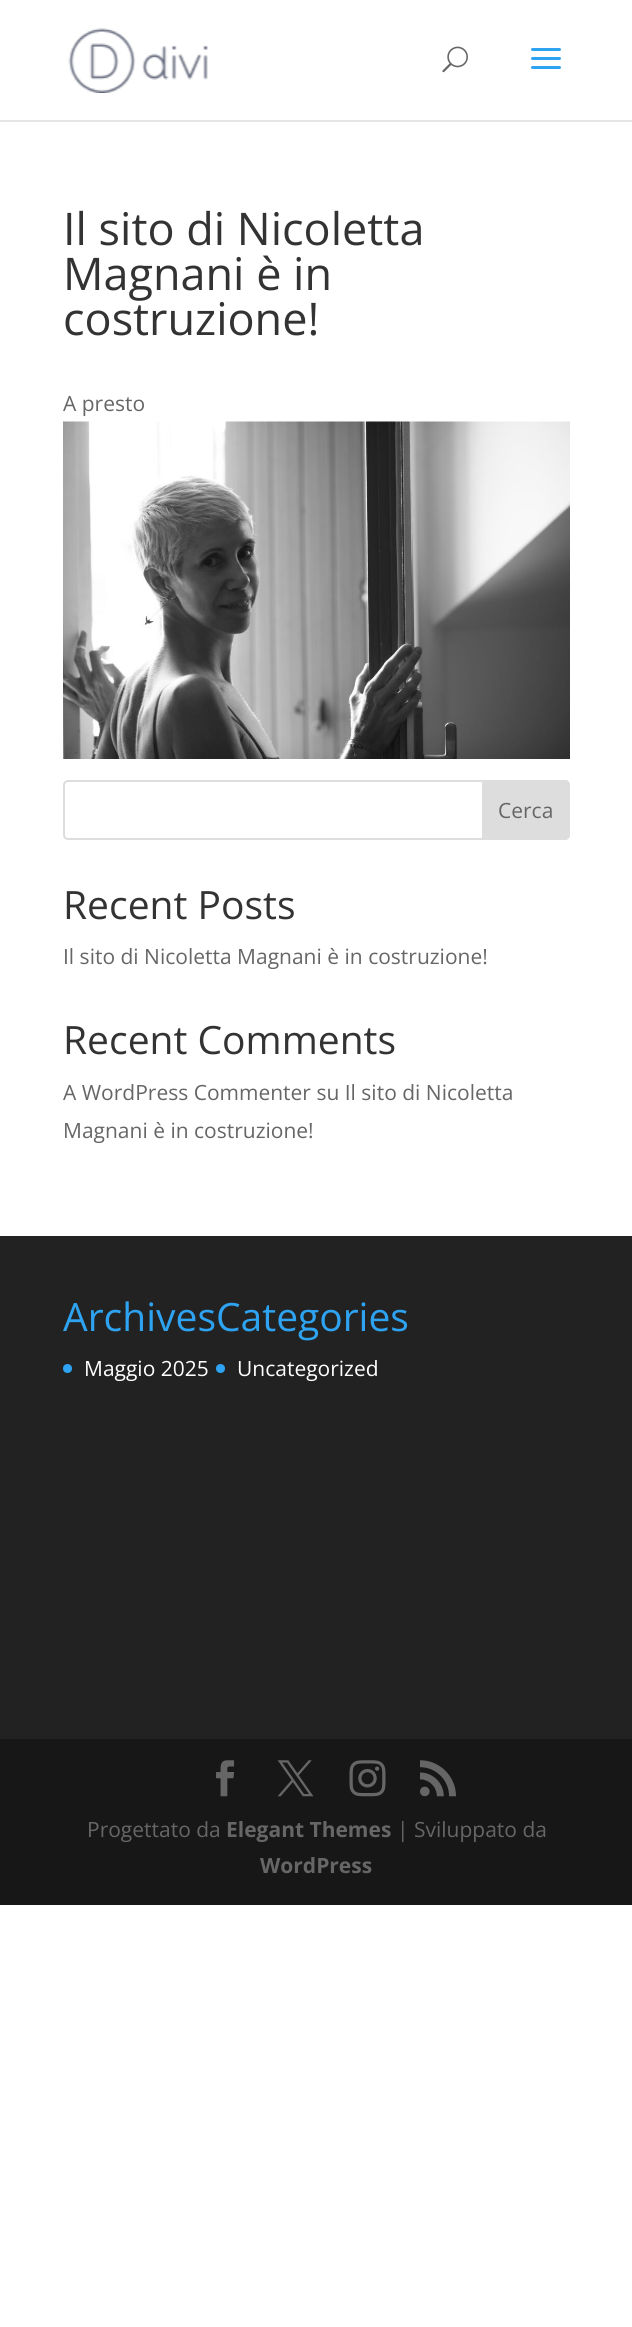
import math
import cairo


def round_path(ctx, x, y, w, h, r):
	ctx.new_sub_path()
	for i, (u, v) in enumerate([(x + w - r, y + h - r), (x + r, y + h - r), (x + r, y + r), (x + w - r, y + r)]):
		ctx.arc(u, v, r, i * math.pi / 2, (i + 1) * math.pi / 2)
	ctx.close_path()

def paste(ctx, path, x, y, w, h):
	ctx.save()
	ctx.set_source_surface(cairo.ImageSurface.create_from_png(path), x, y)
	ctx.rectangle(x, y, w, h)
	ctx.fill()
	ctx.restore()

def draw(ctx):
	ctx.set_source_rgb(1, 1, 1)
	ctx.paint()
	ctx.set_source_rgb(0.902, 0.902, 0.902)
	ctx.rectangle(0, 120, 632, 2)
	ctx.fill()
	paste(ctx, 'media/1.png', 68, 28, 141, 65)
	paste(ctx, 'media/2.png', 442, 46, 26, 27)
	paste(ctx, 'media/3.png', 531, 48, 30, 21)
	ctx.select_font_face('Open Sans')
	ctx.set_font_size(45)
	ctx.set_source_rgb(0.2, 0.2, 0.2)
	for x, y, s in [
		(63, 245, 'Il sito di Nicoletta'),
		(63, 290, 'Magnani è in'),
		(63, 335, 'costruzione!'),
	]:
		ctx.move_to(x, y)
		ctx.show_text(s)
	ctx.set_font_size(21)
	ctx.set_source_rgb(0.4, 0.4, 0.4)
	ctx.move_to(63, 411)
	ctx.show_text('A presto')
	paste(ctx, 'media/4.png', 63, 421, 507, 338)
	round_path(ctx, 64, 781, 505, 58, 4)
	ctx.set_source_rgb(0.867, 0.867, 0.867)
	ctx.stroke()
	ctx.new_path()
	ctx.move_to(483, 781)
	ctx.line_to(565, 781)
	ctx.curve_to(567, 781, 569, 783, 569, 785)
	ctx.line_to(569, 835)
	ctx.curve_to(569, 837, 567, 839, 565, 839)
	ctx.line_to(483, 839)
	ctx.close_path()
	ctx.fill_preserve()
	ctx.stroke()
	ctx.set_source_rgb(0.4, 0.4, 0.4)
	ctx.move_to(498, 818)
	ctx.show_text('Cerca')
	ctx.set_font_size(39)
	ctx.set_source_rgb(0.2, 0.2, 0.2)
	ctx.move_to(63, 919)
	ctx.show_text('Recent Posts')
	ctx.set_font_size(21)
	ctx.set_source_rgb(0.4, 0.4, 0.4)
	ctx.move_to(63, 964)
	ctx.show_text('Il sito di Nicoletta Magnani è in costruzione!')
	ctx.set_font_size(39)
	ctx.set_source_rgb(0.2, 0.2, 0.2)
	ctx.move_to(63, 1054)
	ctx.show_text('Recent Comments')
	ctx.set_font_size(21)
	ctx.set_source_rgb(0.4, 0.4, 0.4)
	ctx.move_to(63, 1100)
	ctx.show_text('A WordPress Commenter su Il sito di Nicoletta')
	ctx.move_to(63, 1138)
	ctx.show_text('Magnani è in costruzione!')
	ctx.set_source_rgb(0.133, 0.133, 0.133)
	ctx.rectangle(0, 1236, 632, 503)
	ctx.fill()
	ctx.set_font_size(39)
	ctx.set_source_rgb(0.18, 0.639, 0.949)
	ctx.move_to(63, 1331)
	ctx.show_text('ArchivesCategories')
	ctx.new_path()
	ctx.arc(67.5, 1368.5, 4.5, 0, 2 * math.pi)
	ctx.fill()
	ctx.set_font_size(21)
	ctx.set_source_rgb(1, 1, 1)
	ctx.move_to(84, 1376)
	ctx.show_text('Maggio 2025')
	ctx.set_source_rgb(0.18, 0.639, 0.949)
	ctx.new_path()
	ctx.arc(220.5, 1368.5, 4.5, 0, 2 * math.pi)
	ctx.fill()
	ctx.set_source_rgb(1, 1, 1)
	ctx.move_to(237, 1376)
	ctx.show_text('Uncategorized')
	ctx.set_source_rgb(0.09, 0.09, 0.09)
	ctx.rectangle(0, 1739, 632, 166)
	ctx.fill()
	paste(ctx, 'media/5.png', 216, 1760, 19, 37)
	paste(ctx, 'media/6.png', 277, 1760, 37, 37)
	paste(ctx, 'media/7.png', 349, 1760, 37, 37)
	paste(ctx, 'media/8.png', 420, 1760, 36, 37)
	ctx.set_source_rgb(0.4, 0.4, 0.4)
	ctx.move_to(87, 1837)
	ctx.show_text('Progettato da')
	ctx.select_font_face('Open Sans', cairo.FONT_SLANT_NORMAL, cairo.FONT_WEIGHT_BOLD)
	ctx.move_to(226, 1837)
	ctx.show_text('Elegant Themes')
	ctx.select_font_face('Open Sans')
	ctx.move_to(397, 1837)
	ctx.show_text('| Sviluppato da')
	ctx.select_font_face('Open Sans', cairo.FONT_SLANT_NORMAL, cairo.FONT_WEIGHT_BOLD)
	ctx.move_to(260, 1873)
	ctx.show_text('WordPress')


surface = cairo.ImageSurface(cairo.FORMAT_RGB24, 632, 2327)
ctx = cairo.Context(surface)
options = cairo.FontOptions()
options.set_hint_metrics(cairo.HINT_METRICS_OFF)
options.set_hint_style(cairo.HINT_STYLE_NONE)
ctx.set_font_options(options)
ctx.set_miter_limit(4)
draw(ctx)
surface.write_to_png('image.png')
